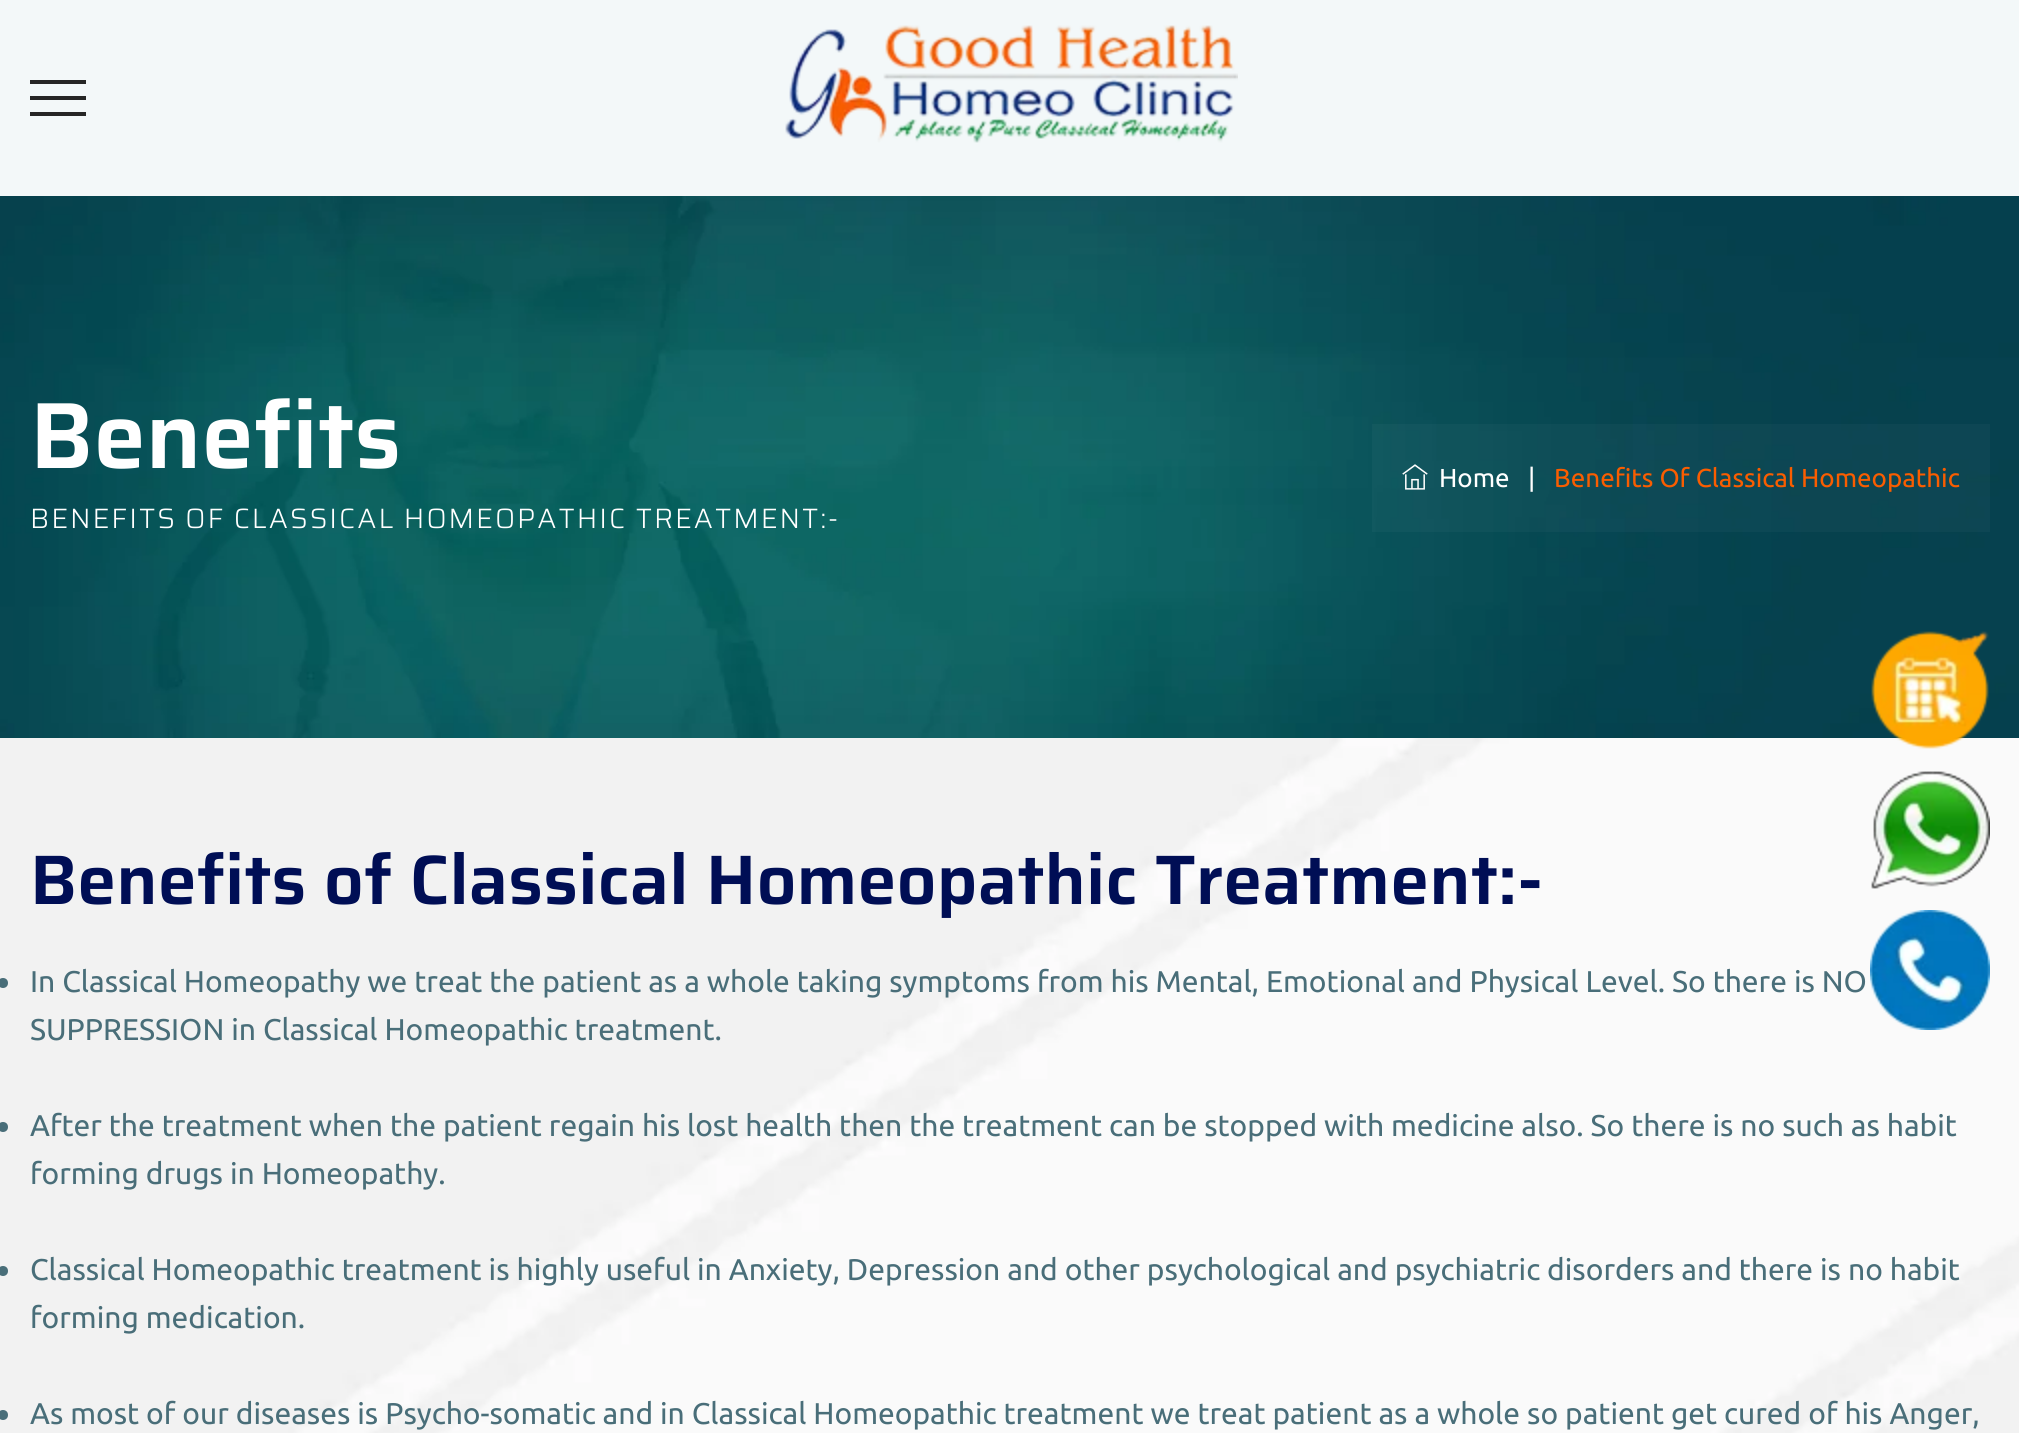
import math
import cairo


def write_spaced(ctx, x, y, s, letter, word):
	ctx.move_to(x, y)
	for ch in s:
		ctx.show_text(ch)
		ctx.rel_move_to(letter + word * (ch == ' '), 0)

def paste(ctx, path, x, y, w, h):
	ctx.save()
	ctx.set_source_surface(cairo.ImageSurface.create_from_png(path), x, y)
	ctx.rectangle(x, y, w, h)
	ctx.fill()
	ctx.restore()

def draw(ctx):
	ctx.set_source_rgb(0.953, 0.969, 0.976)
	ctx.paint()
	ctx.set_source_rgb(0.149, 0.149, 0.149)
	ctx.rectangle(30, 80, 56, 4)
	ctx.rectangle(30, 96, 56, 4)
	ctx.rectangle(30, 112, 56, 4)
	ctx.fill()
	paste(ctx, 'media/1.png', 785, 25, 453, 118)
	paste(ctx, 'media/2.png', 0, 196, 2019, 542)
	ctx.select_font_face('Saira SemiBold')
	ctx.set_font_size(94)
	ctx.set_source_rgb(1, 1, 1)
	ctx.move_to(30, 468)
	ctx.show_text('Benefits')
	ctx.select_font_face('Saira Light')
	ctx.set_font_size(28)
	write_spaced(ctx, 30, 528, 'BENEFITS OF CLASSICAL HOMEOPATHIC TREATMENT:-', 2, 0)
	ctx.set_source_rgba(1, 1, 1, 0.03)
	ctx.rectangle(1372, 424, 618, 108)
	ctx.fill()
	paste(ctx, 'media/3.png', 1402, 464, 26, 26)
	ctx.select_font_face('Ubuntu')
	ctx.set_font_size(26)
	ctx.set_source_rgb(1, 1, 1)
	ctx.move_to(1439, 487)
	ctx.show_text('Home')
	ctx.move_to(1528, 487)
	ctx.show_text('|')
	ctx.set_source_rgb(0.98, 0.365, 0)
	ctx.move_to(1554, 487)
	ctx.show_text('Benefits Of Classical Homeopathic')
	paste(ctx, 'media/7.png', 0, 738, 2019, 695)
	paste(ctx, 'media/4.png', 1871, 631, 118, 118)
	paste(ctx, 'media/5.png', 1871, 771, 119, 118)
	paste(ctx, 'media/6.png', 1871, 771, 119, 118)
	ctx.select_font_face('Saira SemiBold')
	ctx.set_font_size(70)
	ctx.set_source_rgb(0, 0.055, 0.333)
	ctx.move_to(30, 904)
	ctx.show_text('Benefits of Classical Homeopathic Treatment:-')
	ctx.set_source_rgb(0.286, 0.431, 0.475)
	ctx.new_path()
	ctx.arc(3, 983, 5, 0, 2 * math.pi)
	ctx.fill()
	ctx.select_font_face('Ubuntu')
	ctx.set_font_size(30)
	ctx.move_to(30, 992)
	ctx.show_text('In Classical Homeopathy we treat the patient as a whole taking symptoms from his Mental, Emotional and Physical Level. So there is NO')
	ctx.move_to(30, 1040)
	ctx.show_text('SUPPRESSION in Classical Homeopathic treatment.')
	ctx.new_path()
	ctx.arc(3, 1127, 5, 0, 2 * math.pi)
	ctx.fill()
	ctx.move_to(30, 1136)
	ctx.show_text('After the treatment when the patient regain his lost health then the treatment can be stopped with medicine also. So there is no such as habit')
	ctx.move_to(30, 1184)
	ctx.show_text('forming drugs in Homeopathy.')
	ctx.new_path()
	ctx.arc(3, 1271, 5, 0, 2 * math.pi)
	ctx.fill()
	ctx.move_to(30, 1280)
	ctx.show_text('Classical Homeopathic treatment is highly useful in Anxiety, Depression and other psychological and psychiatric disorders and there is no habit')
	ctx.move_to(30, 1328)
	ctx.show_text('forming medication.')
	ctx.new_path()
	ctx.arc(3, 1415, 5, 0, 2 * math.pi)
	ctx.fill()
	ctx.move_to(30, 1424)
	ctx.show_text('As most of our diseases is Psycho-somatic and in Classical Homeopathic treatment we treat patient as a whole so patient get cured of his Anger,')
	paste(ctx, 'media/8.png', 1870, 910, 120, 120)


surface = cairo.ImageSurface(cairo.FORMAT_RGB24, 2019, 1433)
ctx = cairo.Context(surface)
options = cairo.FontOptions()
options.set_hint_metrics(cairo.HINT_METRICS_OFF)
options.set_hint_style(cairo.HINT_STYLE_NONE)
ctx.set_font_options(options)
ctx.set_miter_limit(4)
draw(ctx)
surface.write_to_png('image.png')
